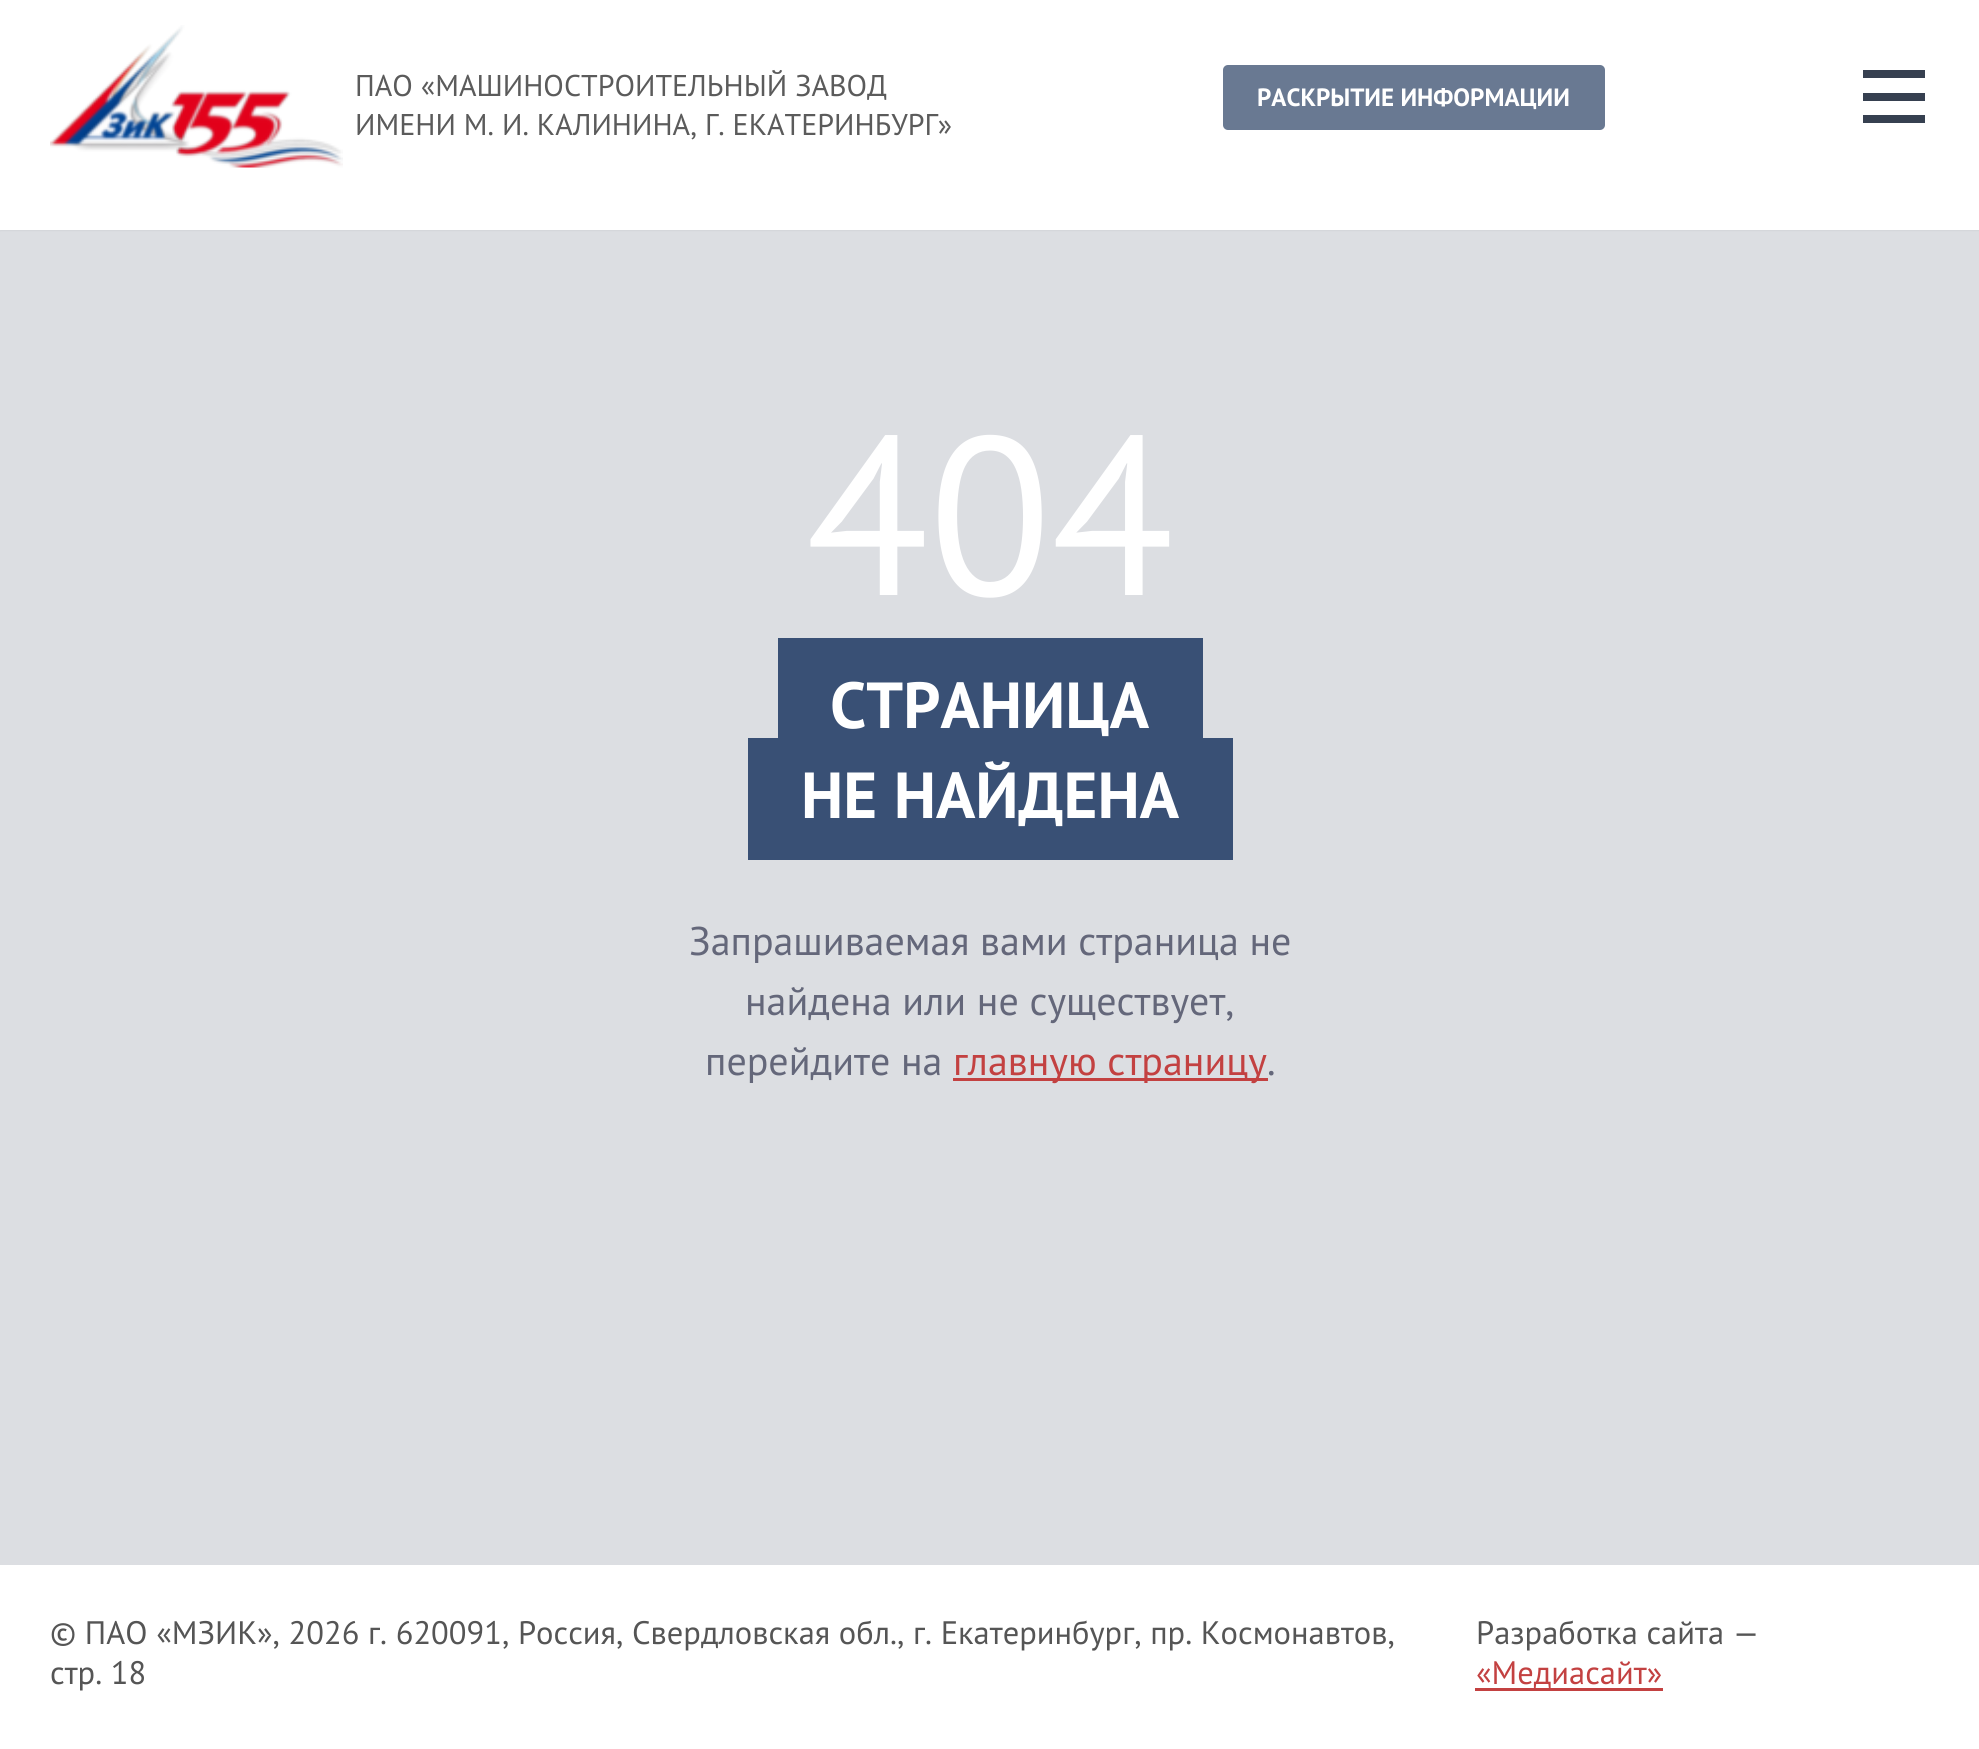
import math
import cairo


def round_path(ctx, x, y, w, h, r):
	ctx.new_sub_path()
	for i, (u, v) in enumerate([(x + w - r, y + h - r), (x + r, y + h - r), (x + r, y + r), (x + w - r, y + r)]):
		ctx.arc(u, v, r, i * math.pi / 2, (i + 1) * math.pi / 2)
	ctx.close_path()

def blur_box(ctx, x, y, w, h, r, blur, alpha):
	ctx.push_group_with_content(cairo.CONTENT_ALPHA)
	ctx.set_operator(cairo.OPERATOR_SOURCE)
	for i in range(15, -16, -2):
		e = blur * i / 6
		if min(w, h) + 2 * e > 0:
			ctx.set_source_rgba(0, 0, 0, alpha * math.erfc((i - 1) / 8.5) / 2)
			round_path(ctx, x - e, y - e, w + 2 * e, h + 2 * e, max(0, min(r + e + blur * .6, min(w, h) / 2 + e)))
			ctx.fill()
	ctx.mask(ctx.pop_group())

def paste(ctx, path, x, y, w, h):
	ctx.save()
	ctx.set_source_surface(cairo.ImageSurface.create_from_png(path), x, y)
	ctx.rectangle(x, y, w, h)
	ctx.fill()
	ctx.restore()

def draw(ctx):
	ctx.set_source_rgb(0.863, 0.871, 0.886)
	ctx.paint()
	ctx.set_source_rgb(0, 0, 0)
	blur_box(ctx, 0, 0, 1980, 230, 0, 1, 0.1)
	ctx.set_source_rgb(1, 1, 1)
	ctx.rectangle(0, 0, 1979, 230)
	ctx.fill()
	paste(ctx, 'media/1.png', 50, 25, 293, 143)
	ctx.select_font_face('PT Sans')
	ctx.set_font_size(30)
	ctx.set_source_rgb(0.357, 0.357, 0.357)
	ctx.move_to(355, 96)
	ctx.show_text('ПАО «МАШИНОСТРОИТЕЛЬНЫЙ ЗАВОД')
	ctx.move_to(355, 135)
	ctx.show_text('ИМЕНИ М. И. КАЛИНИНА, Г. ЕКАТЕРИНБУРГ»')
	ctx.set_source_rgb(0.412, 0.475, 0.573)
	round_path(ctx, 1223, 65, 382, 65, 5)
	ctx.fill()
	ctx.select_font_face('PT Sans', cairo.FONT_SLANT_NORMAL, cairo.FONT_WEIGHT_BOLD)
	ctx.set_font_size(25)
	ctx.set_source_rgb(1, 1, 1)
	ctx.move_to(1257, 106)
	ctx.show_text('РАСКРЫТИЕ ИНФОРМАЦИИ')
	ctx.set_source_rgb(0.212, 0.251, 0.314)
	ctx.rectangle(1863, 93, 62, 8)
	ctx.rectangle(1863, 70, 62, 8)
	ctx.rectangle(1863, 115, 62, 8)
	ctx.fill()
	ctx.select_font_face('PT Sans')
	ctx.set_font_size(225)
	ctx.set_source_rgb(1, 1, 1)
	ctx.move_to(806, 595)
	ctx.show_text('404')
	ctx.set_source_rgb(0.224, 0.314, 0.459)
	ctx.rectangle(778, 638, 425, 100)
	ctx.fill()
	ctx.select_font_face('PT Sans', cairo.FONT_SLANT_NORMAL, cairo.FONT_WEIGHT_BOLD)
	ctx.set_font_size(65)
	ctx.set_source_rgb(1, 1, 1)
	ctx.move_to(830, 728)
	ctx.show_text('СТРАНИЦА')
	ctx.set_source_rgb(0.224, 0.314, 0.459)
	ctx.rectangle(748, 738, 485, 122)
	ctx.fill()
	ctx.set_source_rgb(1, 1, 1)
	ctx.move_to(801, 818)
	ctx.show_text('НЕ НАЙДЕНА')
	ctx.select_font_face('PT Sans')
	ctx.set_font_size(40)
	ctx.set_source_rgb(0.392, 0.404, 0.478)
	for x, y, s in [
		(689, 955, 'Запрашиваемая вами страница не'),
		(745, 1015, 'найдена или не существует,'),
		(705, 1075, 'перейдите на'),
	]:
		ctx.move_to(x, y)
		ctx.show_text(s)
	ctx.set_source_rgb(0.765, 0.255, 0.255)
	ctx.rectangle(953, 1078, 315, 3)
	ctx.fill()
	ctx.move_to(953, 1075)
	ctx.show_text('главную страницу')
	ctx.set_source_rgb(0.392, 0.404, 0.478)
	ctx.move_to(1267, 1075)
	ctx.show_text('.')
	ctx.set_source_rgb(1, 1, 1)
	ctx.rectangle(0, 1565, 1979, 184)
	ctx.fill()
	ctx.set_font_size(32.5)
	ctx.set_source_rgb(0.333, 0.333, 0.333)
	for x, y, s in [
		(50, 1644, '© ПАО «МЗИК», 2026 г. 620091, Россия, Свердловская обл., г. Екатеринбург, пр. Космонавтов,'),
		(50, 1684, 'стр. 18'),
		(1476, 1644, 'Разработка сайта —'),
	]:
		ctx.move_to(x, y)
		ctx.show_text(s)
	ctx.set_source_rgb(0.765, 0.255, 0.255)
	ctx.rectangle(1475, 1688, 188, 3)
	ctx.fill()
	ctx.move_to(1476, 1684)
	ctx.show_text('«Медиасайт»')


surface = cairo.ImageSurface(cairo.FORMAT_RGB24, 1979, 1749)
ctx = cairo.Context(surface)
options = cairo.FontOptions()
options.set_hint_metrics(cairo.HINT_METRICS_OFF)
options.set_hint_style(cairo.HINT_STYLE_NONE)
ctx.set_font_options(options)
ctx.set_miter_limit(4)
draw(ctx)
surface.write_to_png('image.png')
